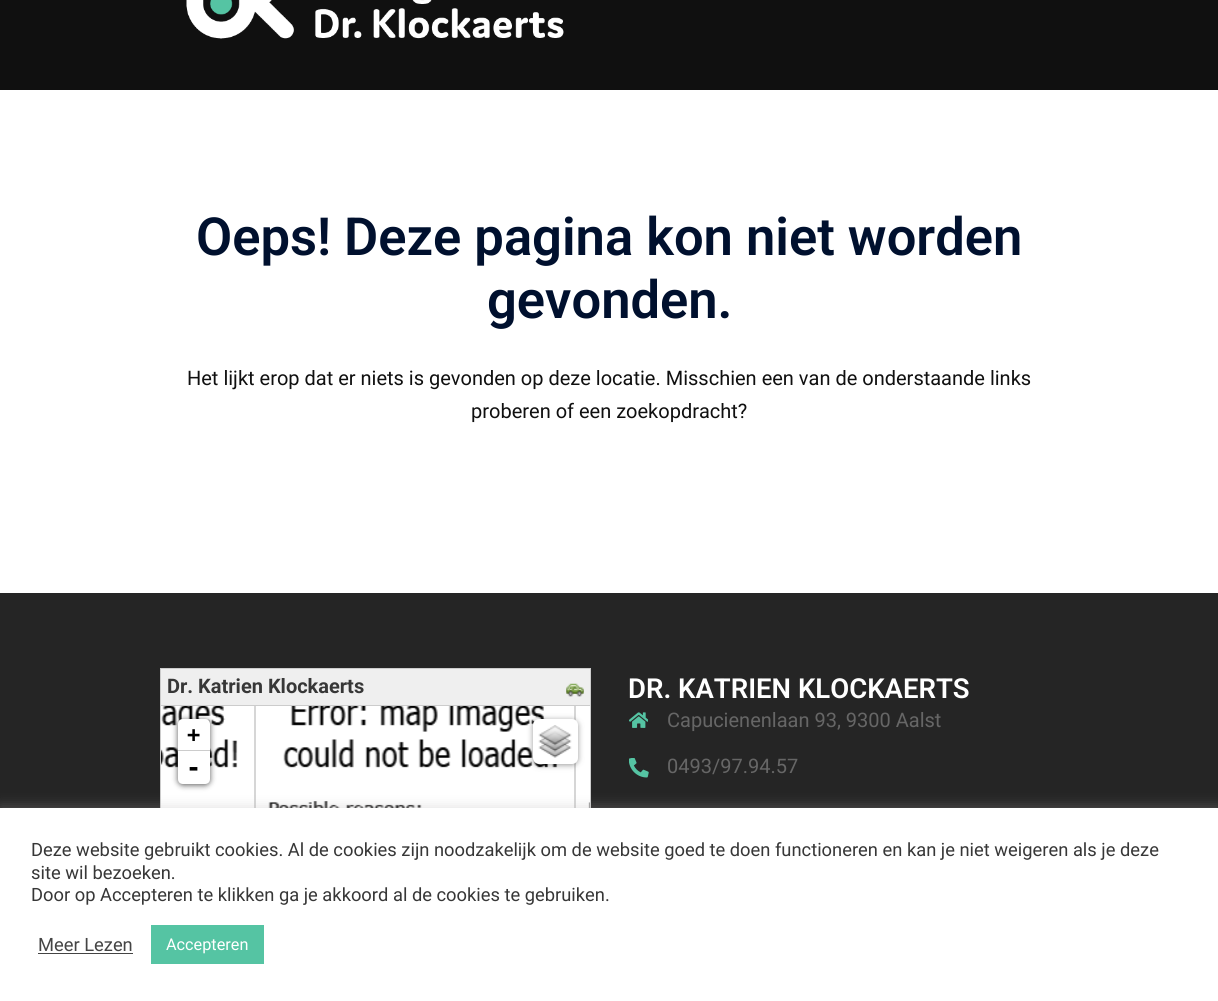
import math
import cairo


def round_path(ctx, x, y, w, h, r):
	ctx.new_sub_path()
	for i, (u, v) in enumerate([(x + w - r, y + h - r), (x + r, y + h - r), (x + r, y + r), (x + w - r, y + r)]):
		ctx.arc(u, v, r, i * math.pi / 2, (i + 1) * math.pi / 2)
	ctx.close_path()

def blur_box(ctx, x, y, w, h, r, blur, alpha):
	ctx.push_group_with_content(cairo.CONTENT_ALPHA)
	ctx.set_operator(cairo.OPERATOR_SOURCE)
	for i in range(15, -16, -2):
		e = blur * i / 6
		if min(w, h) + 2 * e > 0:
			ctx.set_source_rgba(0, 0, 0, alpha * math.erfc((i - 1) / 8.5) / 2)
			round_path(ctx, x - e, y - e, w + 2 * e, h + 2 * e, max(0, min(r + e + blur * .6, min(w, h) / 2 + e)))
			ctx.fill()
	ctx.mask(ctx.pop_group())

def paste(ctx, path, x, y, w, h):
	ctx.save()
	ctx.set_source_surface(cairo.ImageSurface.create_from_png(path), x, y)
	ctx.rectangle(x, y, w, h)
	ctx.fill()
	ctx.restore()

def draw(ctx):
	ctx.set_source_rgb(1, 1, 1)
	ctx.paint()
	ctx.set_source_rgb(0.063, 0.063, 0.063)
	ctx.rectangle(0, 0, 1218, 90)
	ctx.fill()
	paste(ctx, 'media/1.png', 186, 0, 378, 39)
	ctx.select_font_face('Roboto SemiBold')
	ctx.set_font_size(52.5)
	ctx.set_source_rgb(0, 0.063, 0.18)
	ctx.move_to(196, 255)
	ctx.show_text('Oeps! Deze pagina kon niet worden')
	ctx.move_to(487, 318)
	ctx.show_text('gevonden.')
	ctx.select_font_face('Roboto')
	ctx.set_font_size(20)
	ctx.set_source_rgb(0.063, 0.063, 0.063)
	ctx.move_to(187, 385)
	ctx.show_text('Het lijkt erop dat er niets is gevonden op deze locatie. Misschien een van de onderstaande links')
	ctx.move_to(471, 418)
	ctx.show_text('proberen of een zoekopdracht?')
	ctx.set_source_rgb(0.145, 0.145, 0.145)
	ctx.rectangle(0, 593, 1218, 215)
	ctx.fill()
	ctx.set_source_rgb(0.937, 0.937, 0.937)
	ctx.rectangle(161, 669, 429, 36)
	ctx.fill()
	ctx.set_source_rgb(0.8, 0.8, 0.8)
	ctx.rectangle(160, 668, 431, 1)
	ctx.rectangle(590, 668, 1, 37)
	ctx.rectangle(160, 668, 1, 37)
	ctx.fill()
	ctx.select_font_face('Roboto', cairo.FONT_SLANT_NORMAL, cairo.FONT_WEIGHT_BOLD)
	ctx.set_source_rgb(0.216, 0.216, 0.216)
	ctx.move_to(167, 693)
	ctx.show_text('Dr. Katrien Klockaerts')
	paste(ctx, 'media/2.png', 566, 683, 18, 14)
	ctx.rectangle(160.5, 705.5, 430, 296)
	ctx.set_source_rgb(0.8, 0.8, 0.8)
	ctx.set_line_width(1)
	ctx.stroke()
	paste(ctx, 'media/3.png', 161, 706, 94, 102)
	paste(ctx, 'media/4.png', 255, 706, 320, 102)
	paste(ctx, 'media/5.png', 575, 706, 15, 102)
	ctx.set_source_rgb(0, 0, 0)
	blur_box(ctx, 178, 720, 32, 65, 5, 3, 0.65)
	ctx.set_source_rgb(1, 1, 1)
	ctx.new_path()
	ctx.move_to(183, 719)
	ctx.line_to(205, 719)
	ctx.curve_to(208, 719, 210, 721, 210, 724)
	ctx.line_to(210, 751)
	ctx.line_to(178, 751)
	ctx.line_to(178, 724)
	ctx.curve_to(178, 721, 180, 719, 183, 719)
	ctx.close_path()
	ctx.fill()
	ctx.set_source_rgb(0.8, 0.8, 0.8)
	ctx.rectangle(178, 750, 32, 1)
	ctx.fill()
	ctx.select_font_face('DejaVu Sans Mono', cairo.FONT_SLANT_NORMAL, cairo.FONT_WEIGHT_BOLD)
	ctx.set_font_size(22)
	ctx.set_source_rgb(0, 0, 0)
	ctx.move_to(187, 742)
	ctx.show_text('+')
	ctx.set_source_rgb(1, 1, 1)
	ctx.new_path()
	ctx.move_to(178, 751)
	ctx.line_to(210, 751)
	ctx.line_to(210, 779)
	ctx.curve_to(210, 782, 208, 784, 205, 784)
	ctx.line_to(183, 784)
	ctx.curve_to(180, 784, 178, 782, 178, 779)
	ctx.close_path()
	ctx.fill()
	ctx.set_font_size(25)
	ctx.set_source_rgb(0, 0, 0)
	ctx.move_to(186, 776)
	ctx.show_text('-')
	ctx.set_source_rgb(0, 0, 0)
	blur_box(ctx, 533, 720, 45, 45, 6, 3, 0.4)
	ctx.set_source_rgb(1, 1, 1)
	round_path(ctx, 533, 719, 45, 45, 6)
	ctx.fill()
	paste(ctx, 'media/6.png', 538, 725, 34, 33)
	ctx.select_font_face('Roboto SemiBold')
	ctx.set_font_size(27.5)
	ctx.move_to(628, 698)
	ctx.show_text('DR. KATRIEN KLOCKAERTS')
	paste(ctx, 'media/7.png', 629, 712, 19, 16)
	ctx.select_font_face('Roboto')
	ctx.set_font_size(20)
	ctx.set_source_rgb(0.4, 0.4, 0.4)
	ctx.move_to(667, 727)
	ctx.show_text('Capucienenlaan 93, 9300 Aalst')
	paste(ctx, 'media/8.png', 629, 758, 20, 20)
	ctx.move_to(667, 773)
	ctx.show_text('0493/97.94.57')
	ctx.set_source_rgb(0.675, 0.671, 0.671)
	blur_box(ctx, 0, 806, 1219, 194, 0, 6, 0.3)
	ctx.set_source_rgb(1, 1, 1)
	ctx.rectangle(0, 808, 1218, 193)
	ctx.fill()
	ctx.set_font_size(18.33)
	ctx.set_source_rgb(0.216, 0.216, 0.216)
	for x, y, s in [
		(31, 856, 'Deze website gebruikt cookies. Al de cookies zijn noodzakelijk om de website goed te doen functioneren en kan je niet weigeren als je deze'),
		(31, 879, 'site wil bezoeken.'),
		(31, 901, 'Door op Accepteren te klikken ga je akkoord al de cookies te gebruiken.'),
	]:
		ctx.move_to(x, y)
		ctx.show_text(s)
	ctx.set_source_rgb(0.267, 0.267, 0.267)
	ctx.move_to(38, 951)
	ctx.show_text('Meer Lezen')
	ctx.rectangle(38, 953, 95, 1)
	ctx.fill()
	ctx.set_source_rgb(0.333, 0.769, 0.639)
	ctx.rectangle(151, 925, 113, 39)
	ctx.fill()
	ctx.set_font_size(16.25)
	ctx.set_source_rgb(1, 1, 1)
	ctx.move_to(166, 950)
	ctx.show_text('Accepteren')


surface = cairo.ImageSurface(cairo.FORMAT_RGB24, 1218, 1001)
ctx = cairo.Context(surface)
options = cairo.FontOptions()
options.set_hint_metrics(cairo.HINT_METRICS_OFF)
options.set_hint_style(cairo.HINT_STYLE_NONE)
ctx.set_font_options(options)
ctx.set_miter_limit(4)
draw(ctx)
surface.write_to_png('image.png')
